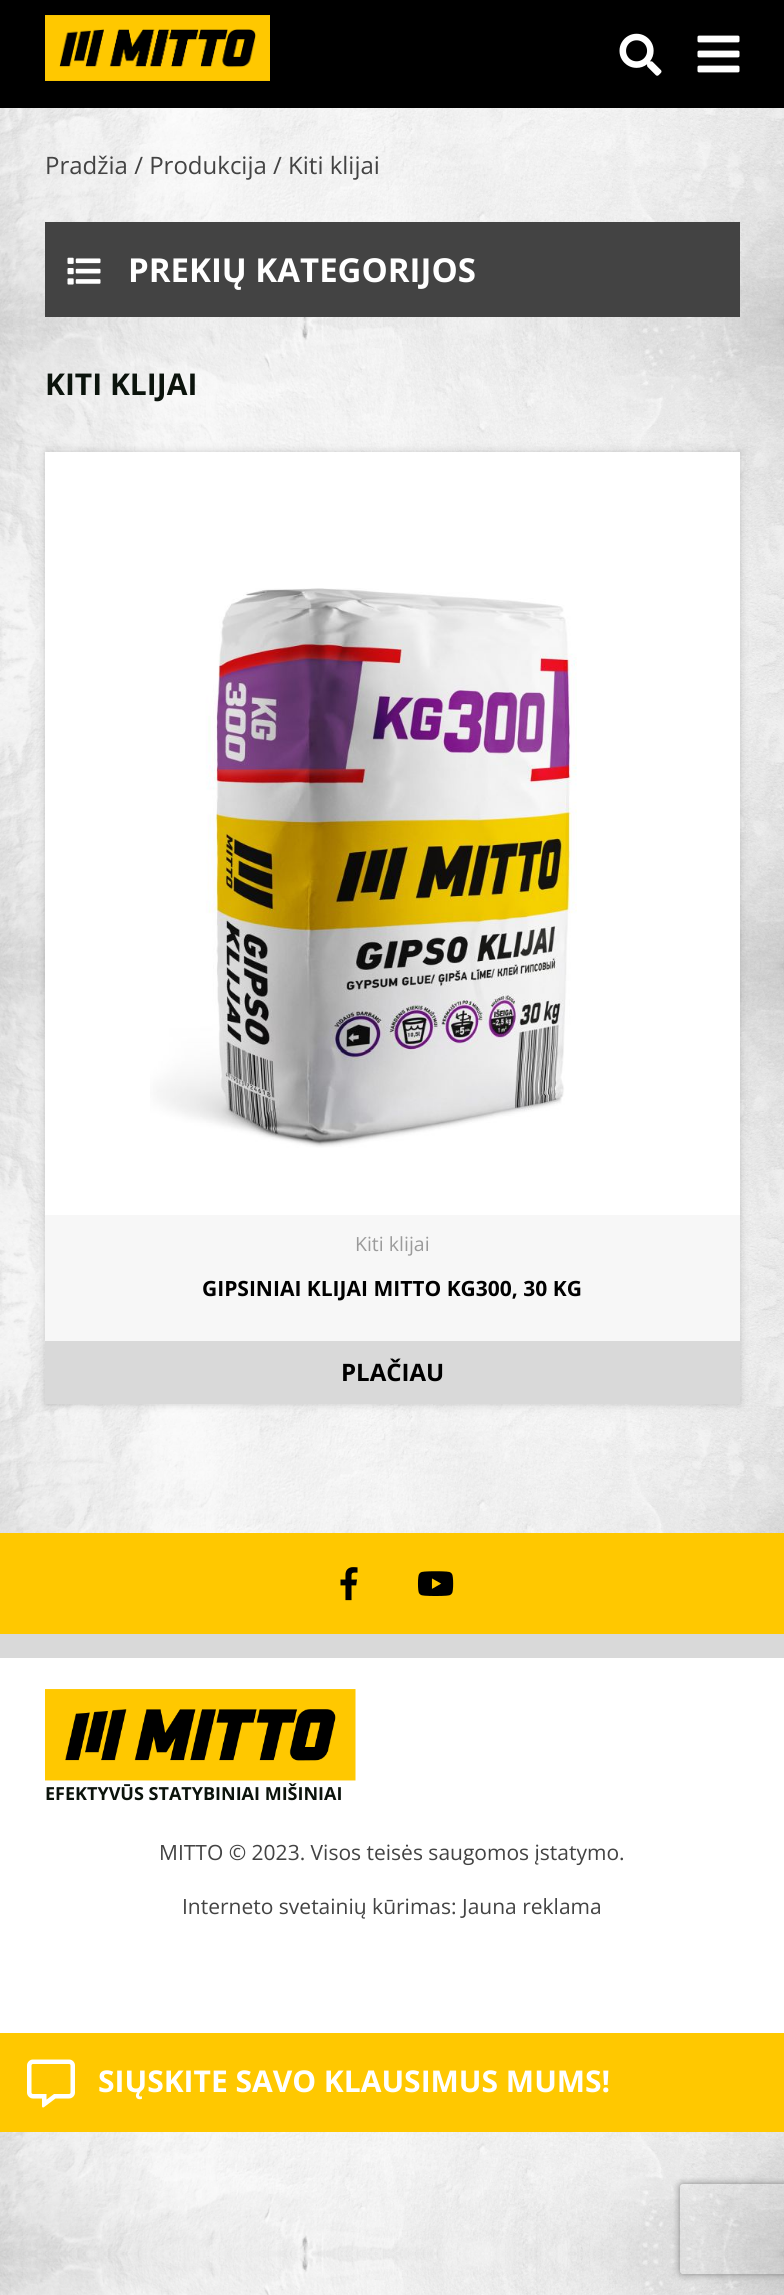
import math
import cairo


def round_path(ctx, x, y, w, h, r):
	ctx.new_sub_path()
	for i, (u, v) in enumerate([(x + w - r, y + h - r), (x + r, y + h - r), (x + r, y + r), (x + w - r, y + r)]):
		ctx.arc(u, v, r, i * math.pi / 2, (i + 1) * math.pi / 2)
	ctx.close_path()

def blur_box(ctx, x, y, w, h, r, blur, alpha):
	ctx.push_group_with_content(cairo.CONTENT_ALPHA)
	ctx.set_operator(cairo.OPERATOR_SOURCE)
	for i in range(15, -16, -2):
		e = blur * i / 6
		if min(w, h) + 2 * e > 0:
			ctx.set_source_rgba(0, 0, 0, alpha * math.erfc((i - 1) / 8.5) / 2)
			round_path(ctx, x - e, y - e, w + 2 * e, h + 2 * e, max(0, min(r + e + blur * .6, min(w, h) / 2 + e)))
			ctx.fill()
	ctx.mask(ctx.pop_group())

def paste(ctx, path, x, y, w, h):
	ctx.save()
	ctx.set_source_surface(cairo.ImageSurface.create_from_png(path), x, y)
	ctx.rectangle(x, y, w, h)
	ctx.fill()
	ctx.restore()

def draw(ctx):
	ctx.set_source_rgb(1, 1, 1)
	ctx.paint()
	paste(ctx, 'media/1.png', 0, 108, 784, 2187)
	ctx.set_source_rgb(0, 0, 0)
	ctx.rectangle(0, 0, 784, 108)
	ctx.fill()
	paste(ctx, 'media/2.png', 697, 35, 43, 38)
	paste(ctx, 'media/3.png', 45, 15, 225, 66)
	paste(ctx, 'media/4.png', 619, 33, 43, 43)
	ctx.select_font_face('Open Sans')
	ctx.set_font_size(24)
	ctx.set_source_rgb(0.263, 0.263, 0.263)
	ctx.move_to(45, 174)
	ctx.show_text('Pradžia / Produkcija / Kiti klijai')
	ctx.rectangle(45, 222, 695, 95)
	ctx.fill()
	paste(ctx, 'media/5.png', 67, 257, 34, 28)
	ctx.select_font_face('Open Sans', cairo.FONT_SLANT_NORMAL, cairo.FONT_WEIGHT_BOLD)
	ctx.set_font_size(33)
	ctx.set_source_rgb(1, 1, 1)
	ctx.move_to(128, 282)
	ctx.show_text('PREKIŲ KATEGORIJOS')
	ctx.set_font_size(30)
	ctx.set_source_rgb(0.043, 0.078, 0.047)
	ctx.move_to(45, 395)
	ctx.show_text('KITI KLIJAI')
	ctx.set_source_rgb(0, 0, 0)
	blur_box(ctx, 45, 452, 695, 952, 0, 4, 0.18)
	ctx.set_source_rgb(0.965, 0.965, 0.965)
	ctx.rectangle(45, 1215, 695, 126)
	ctx.fill()
	ctx.set_source_rgb(1, 1, 1)
	ctx.rectangle(45, 452, 695, 763)
	ctx.fill()
	paste(ctx, 'media/6.png', 150, 588, 427, 560)
	ctx.select_font_face('Open Sans')
	ctx.set_font_size(19.5)
	ctx.set_source_rgb(0.608, 0.608, 0.608)
	ctx.move_to(355, 1251)
	ctx.show_text('Kiti klijai')
	ctx.select_font_face('Open Sans', cairo.FONT_SLANT_NORMAL, cairo.FONT_WEIGHT_BOLD)
	ctx.set_font_size(21)
	ctx.set_source_rgb(0, 0, 0)
	ctx.move_to(202, 1296)
	ctx.show_text('GIPSINIAI KLIJAI MITTO KG300, 30 KG')
	ctx.set_source_rgb(0.851, 0.851, 0.851)
	ctx.rectangle(45, 1341, 695, 63)
	ctx.fill()
	ctx.set_font_size(24)
	ctx.set_source_rgb(0, 0, 0)
	ctx.move_to(341, 1381)
	ctx.show_text('PLAČIAU')
	ctx.set_source_rgb(1, 0.784, 0)
	ctx.rectangle(0, 1533, 784, 101)
	ctx.fill()
	paste(ctx, 'media/7.png', 340, 1567, 18, 34)
	paste(ctx, 'media/8.png', 417, 1571, 37, 25)
	ctx.set_source_rgb(1, 1, 1)
	ctx.rectangle(0, 1658, 784, 375)
	ctx.fill()
	ctx.set_source_rgb(0.851, 0.851, 0.851)
	ctx.rectangle(0, 1634, 784, 24)
	ctx.fill()
	paste(ctx, 'media/9.png', 45, 1689, 311, 92)
	ctx.set_font_size(18)
	ctx.set_source_rgb(0.043, 0.078, 0.047)
	ctx.move_to(45, 1800)
	ctx.show_text('EFEKTYVŪS STATYBINIAI MIŠINIAI')
	ctx.select_font_face('Open Sans')
	ctx.set_font_size(21)
	ctx.set_source_rgb(0.263, 0.263, 0.263)
	ctx.move_to(159, 1860)
	ctx.show_text('MITTO © 2023. Visos teisės saugomos įstatymo.')
	ctx.move_to(182, 1914)
	ctx.show_text('Interneto svetainių kūrimas: Jauna reklama')
	ctx.set_source_rgb(1, 0.784, 0)
	ctx.rectangle(0, 2033, 784, 99)
	ctx.fill()
	paste(ctx, 'media/10.png', 27, 2059, 48, 49)
	ctx.select_font_face('Open Sans', cairo.FONT_SLANT_NORMAL, cairo.FONT_WEIGHT_BOLD)
	ctx.set_font_size(30)
	ctx.set_source_rgb(1, 1, 1)
	ctx.move_to(98, 2092)
	ctx.show_text('SIŲSKITE SAVO KLAUSIMUS MUMS!')
	ctx.save()
	ctx.set_fill_rule(cairo.FILL_RULE_EVEN_ODD)
	ctx.new_path()
	ctx.move_to(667, 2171)
	ctx.line_to(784, 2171)
	ctx.line_to(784, 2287)
	ctx.line_to(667, 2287)
	ctx.close_path()
	ctx.move_to(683, 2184)
	ctx.line_to(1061, 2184)
	ctx.curve_to(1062.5, 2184, 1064, 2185.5, 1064, 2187)
	ctx.line_to(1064, 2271)
	ctx.curve_to(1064, 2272.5, 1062.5, 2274, 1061, 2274)
	ctx.line_to(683, 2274)
	ctx.curve_to(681.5, 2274, 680, 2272.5, 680, 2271)
	ctx.line_to(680, 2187)
	ctx.curve_to(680, 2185.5, 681.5, 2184, 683, 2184)
	ctx.close_path()
	ctx.clip()
	ctx.set_source_rgb(0.502, 0.502, 0.502)
	blur_box(ctx, 680, 2184, 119, 90, 3, 4, 1)
	ctx.restore()


surface = cairo.ImageSurface(cairo.FORMAT_RGB24, 784, 2295)
ctx = cairo.Context(surface)
options = cairo.FontOptions()
options.set_hint_metrics(cairo.HINT_METRICS_OFF)
options.set_hint_style(cairo.HINT_STYLE_NONE)
ctx.set_font_options(options)
ctx.set_miter_limit(4)
draw(ctx)
surface.write_to_png('image.png')
